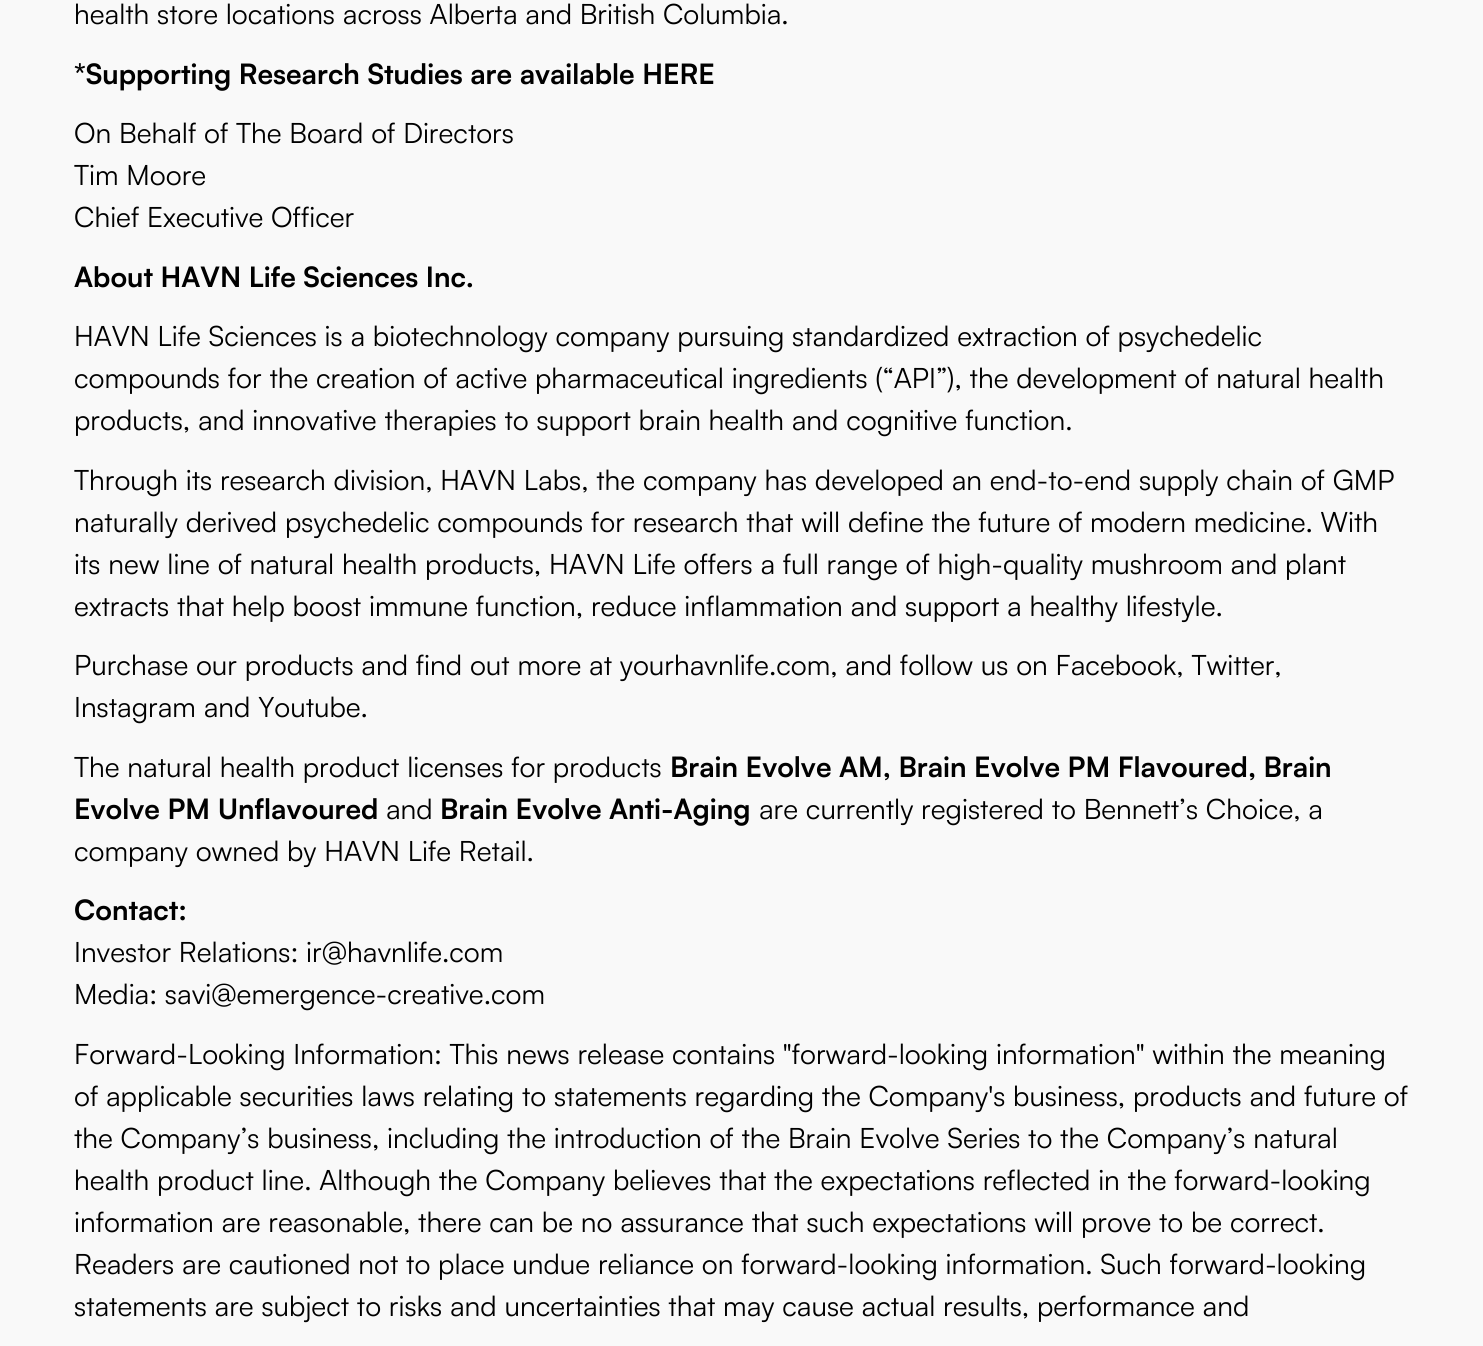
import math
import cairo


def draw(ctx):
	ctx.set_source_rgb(0.973, 0.973, 0.973)
	ctx.paint()
	ctx.select_font_face('Satoshi')
	ctx.set_font_size(28)
	ctx.set_source_rgb(0, 0, 0)
	ctx.move_to(74, 24)
	ctx.show_text('health store locations across Alberta and British Columbia.')
	ctx.select_font_face('Satoshi', cairo.FONT_SLANT_NORMAL, cairo.FONT_WEIGHT_BOLD)
	ctx.move_to(74, 84)
	ctx.show_text('*Supporting Research Studies are available HERE')
	ctx.select_font_face('Satoshi')
	for x, y, s in [
		(74, 143, 'On Behalf of The Board of Directors'),
		(74, 185, 'Tim Moore'),
		(74, 227, 'Chief Executive Officer'),
	]:
		ctx.move_to(x, y)
		ctx.show_text(s)
	ctx.select_font_face('Satoshi', cairo.FONT_SLANT_NORMAL, cairo.FONT_WEIGHT_BOLD)
	ctx.move_to(74, 287)
	ctx.show_text('About HAVN Life Sciences Inc.')
	ctx.select_font_face('Satoshi')
	for x, y, s in [
		(74, 346, 'HAVN Life Sciences is a biotechnology company pursuing standardized extraction of psychedelic'),
		(74, 388, 'compounds for the creation of active pharmaceutical ingredients (“API”), the development of natural health'),
		(74, 430, 'products, and innovative therapies to support brain health and cognitive function.'),
		(74, 490, 'Through its research division, HAVN Labs, the company has developed an end-to-end supply chain of GMP'),
		(74, 532, 'naturally derived psychedelic compounds for research that will define the future of modern medicine. With'),
		(74, 574, 'its new line of natural health products, HAVN Life offers a full range of high-quality mushroom and plant'),
		(74, 616, 'extracts that help boost immune function, reduce inflammation and support a healthy lifestyle.'),
		(74, 675, 'Purchase our products and find out more at yourhavnlife.com, and follow us on Facebook, Twitter,'),
		(74, 717, 'Instagram and Youtube.'),
		(74, 777, 'The natural health product licenses for products'),
	]:
		ctx.move_to(x, y)
		ctx.show_text(s)
	ctx.select_font_face('Satoshi', cairo.FONT_SLANT_NORMAL, cairo.FONT_WEIGHT_BOLD)
	ctx.move_to(670, 777)
	ctx.show_text('Brain Evolve AM, Brain Evolve PM Flavoured, Brain')
	ctx.move_to(74, 819)
	ctx.show_text('Evolve PM Unflavoured')
	ctx.select_font_face('Satoshi')
	ctx.move_to(386, 819)
	ctx.show_text('and')
	ctx.select_font_face('Satoshi', cairo.FONT_SLANT_NORMAL, cairo.FONT_WEIGHT_BOLD)
	ctx.move_to(440, 819)
	ctx.show_text('Brain Evolve Anti-Aging')
	ctx.select_font_face('Satoshi')
	ctx.move_to(759, 819)
	ctx.show_text('are currently registered to Bennett’s Choice, a')
	ctx.move_to(74, 861)
	ctx.show_text('company owned by HAVN Life Retail.')
	ctx.select_font_face('Satoshi', cairo.FONT_SLANT_NORMAL, cairo.FONT_WEIGHT_BOLD)
	ctx.move_to(74, 920)
	ctx.show_text('Contact:')
	ctx.select_font_face('Satoshi')
	for x, y, s in [
		(74, 962, 'Investor Relations: ir@havnlife.com'),
		(74, 1004, 'Media: savi@emergence-creative.com'),
		(74, 1064, 'Forward-Looking Information: This news release contains "forward-looking information" within the meaning'),
		(74, 1106, 'of applicable securities laws relating to statements regarding the Company\'s business, products and future of'),
		(74, 1148, 'the Company’s business, including the introduction of the Brain Evolve Series to the Company’s natural'),
		(74, 1190, 'health product line. Although the Company believes that the expectations reflected in the forward-looking'),
		(74, 1232, 'information are reasonable, there can be no assurance that such expectations will prove to be correct.'),
		(74, 1274, 'Readers are cautioned not to place undue reliance on forward-looking information. Such forward-looking'),
		(74, 1316, 'statements are subject to risks and uncertainties that may cause actual results, performance and'),
	]:
		ctx.move_to(x, y)
		ctx.show_text(s)


surface = cairo.ImageSurface(cairo.FORMAT_RGB24, 1483, 1346)
ctx = cairo.Context(surface)
options = cairo.FontOptions()
options.set_hint_metrics(cairo.HINT_METRICS_OFF)
options.set_hint_style(cairo.HINT_STYLE_NONE)
ctx.set_font_options(options)
ctx.set_miter_limit(4)
draw(ctx)
surface.write_to_png('image.png')
